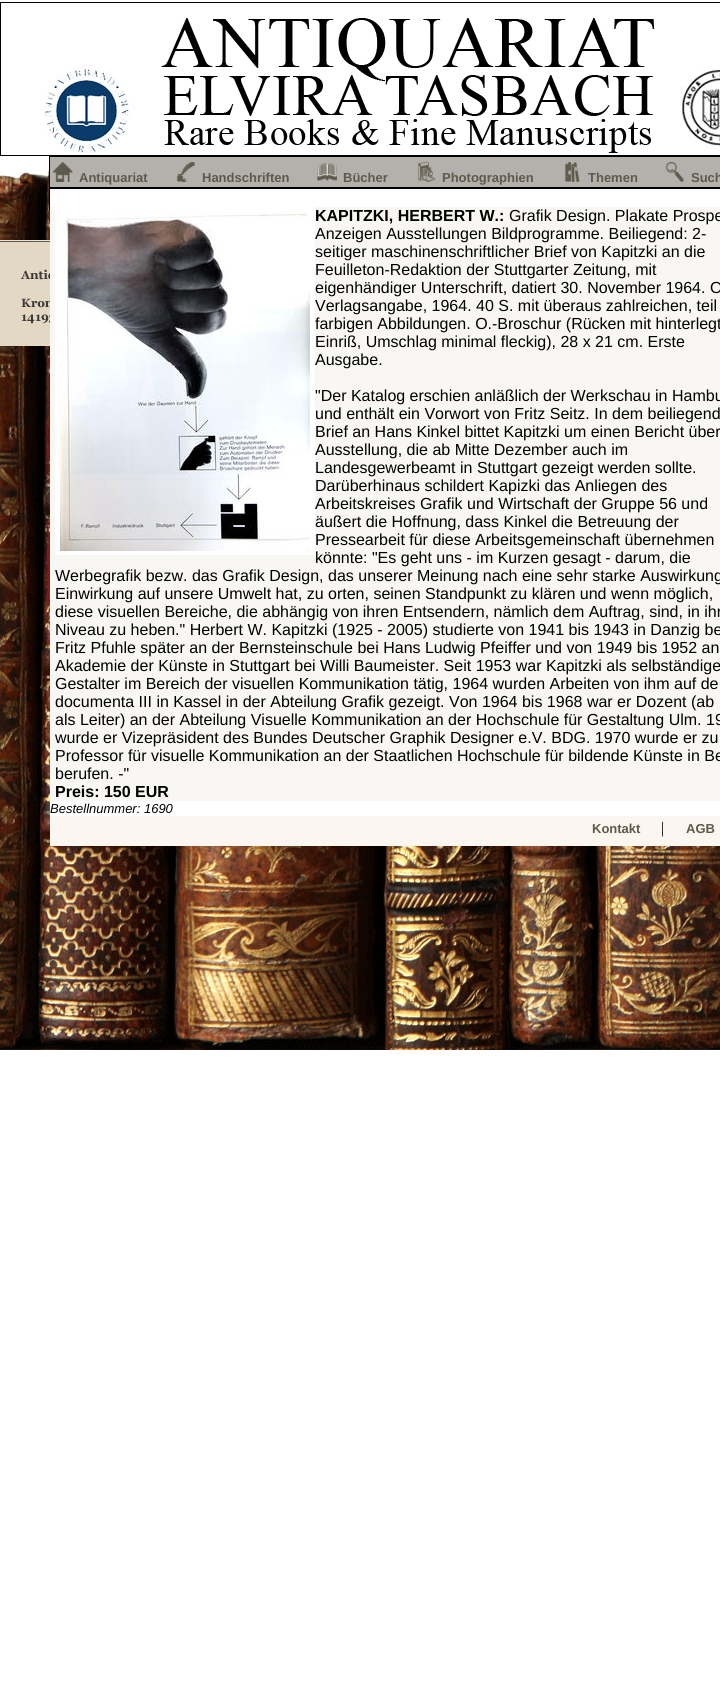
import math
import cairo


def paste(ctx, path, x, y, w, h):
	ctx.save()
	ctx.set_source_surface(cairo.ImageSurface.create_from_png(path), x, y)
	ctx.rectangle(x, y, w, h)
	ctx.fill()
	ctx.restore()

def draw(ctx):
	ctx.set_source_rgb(1, 1, 1)
	ctx.paint()
	paste(ctx, 'media/1.png', 0, 168, 720, 882)
	paste(ctx, 'media/2.png', 39, 18, 681, 137)
	ctx.rectangle(0.5, 2.5, 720, 153)
	ctx.set_source_rgb(0, 0, 0)
	ctx.set_line_width(1)
	ctx.stroke()
	paste(ctx, 'media/3.png', 0, 240, 50, 106)
	ctx.set_source_rgb(0.706, 0.69, 0.675)
	ctx.rectangle(49.5, 156.5, 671, 31)
	ctx.fill_preserve()
	ctx.set_source_rgb(0, 0, 0)
	ctx.stroke()
	paste(ctx, 'media/4.png', 53, 162, 20, 20)
	ctx.select_font_face('Liberation Sans', cairo.FONT_SLANT_NORMAL, cairo.FONT_WEIGHT_BOLD)
	ctx.set_font_size(13)
	ctx.set_source_rgb(0.373, 0.349, 0.294)
	ctx.move_to(79, 182)
	ctx.show_text('Antiquariat')
	paste(ctx, 'media/5.png', 176, 162, 20, 20)
	ctx.move_to(202, 182)
	ctx.show_text('Handschriften')
	paste(ctx, 'media/6.png', 317, 163, 20, 18)
	ctx.move_to(343, 182)
	ctx.show_text('Bücher')
	paste(ctx, 'media/7.png', 418, 162, 18, 20)
	ctx.move_to(442, 182)
	ctx.show_text('Photographien')
	paste(ctx, 'media/8.png', 565, 162, 15, 20)
	ctx.move_to(588, 182)
	ctx.show_text('Themen')
	paste(ctx, 'media/9.png', 665, 162, 20, 20)
	ctx.move_to(691, 182)
	ctx.show_text('Such')
	ctx.rectangle(49.5, 188.5, 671, 21)
	ctx.set_source_rgb(0, 0, 0)
	ctx.stroke()
	ctx.set_source_rgb(1, 1, 1)
	ctx.rectangle(50, 189, 670, 18)
	ctx.fill()
	ctx.set_source_rgb(0.969, 0.965, 0.957)
	ctx.rectangle(50, 207, 670, 594)
	ctx.fill()
	ctx.set_source_rgb(1, 1, 1)
	ctx.rectangle(55, 207, 260, 348)
	ctx.fill()
	paste(ctx, 'media/10.png', 60, 212, 250, 339)
	ctx.set_font_size(16)
	ctx.set_source_rgb(0, 0, 0)
	ctx.move_to(315, 221)
	ctx.show_text('KAPITZKI, HERBERT W.:')
	ctx.select_font_face('Liberation Sans')
	for x, y, s in [
		(509, 221, 'Grafik Design. Plakate Prospe'),
		(315, 239, 'Anzeigen Ausstellungen Bildprogramme. Beiliegend: 2-'),
		(315, 257, 'seitiger maschinenschriftlicher Brief von Kapitzki an die'),
		(315, 275, 'Feuilleton-Redaktion der Stuttgarter Zeitung, mit'),
		(315, 293, 'eigenhändiger Unterschrift, datiert 30. November 1964. O'),
		(315, 311, 'Verlagsangabe, 1964. 40 S. mit überaus zahlreichen, teil'),
		(315, 329, 'farbigen Abbildungen. O.-Broschur (Rücken mit hinterlegt'),
		(315, 347, 'Einriß, Umschlag minimal fleckig), 28 x 21 cm. Erste'),
		(315, 365, 'Ausgabe.'),
		(315, 401, '"Der Katalog erschien anläßlich der Werkschau in Hambu'),
		(315, 419, 'und enthält ein Vorwort von Fritz Seitz. In dem beiliegend'),
		(315, 437, 'Brief an Hans Kinkel bittet Kapitzki um einen Bericht über'),
		(315, 455, 'Ausstellung, die ab Mitte Dezember auch im'),
		(315, 473, 'Landesgewerbeamt in Stuttgart gezeigt werden sollte.'),
		(315, 491, 'Darüberhinaus schildert Kapizki das Anliegen des'),
		(315, 509, 'Arbeitskreises Grafik und Wirtschaft der Gruppe 56 und'),
		(315, 527, 'äußert die Hoffnung, dass Kinkel die Betreuung der'),
		(315, 545, 'Pressearbeit für diese Arbeitsgemeinschaft übernehmen'),
		(315, 563, 'könnte: "Es geht uns - im Kurzen gesagt - darum, die'),
		(55, 581, 'Werbegrafik bezw. das Grafik Design, das unserer Meinung nach eine sehr starke Auswirkung'),
		(55, 599, 'Einwirkung auf unsere Umwelt hat, zu orten, seinen Standpunkt zu klären und wenn möglich,'),
		(55, 617, 'diese visuellen Bereiche, die abhängig von ihren Entsendern, nämlich dem Auftrag, sind, in ihr'),
		(55, 635, 'Niveau zu heben." Herbert W. Kapitzki (1925 - 2005) studierte von 1941 bis 1943 in Danzig be'),
		(55, 653, 'Fritz Pfuhle später an der Bernsteinschule bei Hans Ludwig Pfeiffer und von 1949 bis 1952 an'),
		(55, 671, 'Akademie der Künste in Stuttgart bei Willi Baumeister. Seit 1953 war Kapitzki als selbständige'),
		(55, 689, 'Gestalter im Bereich der visuellen Kommunikation tätig, 1964 wurden Arbeiten von ihm auf de'),
		(55, 707, 'documenta III in Kassel in der Abteilung Grafik gezeigt. Von 1964 bis 1968 war er Dozent (ab'),
		(55, 725, 'als Leiter) an der Abteilung Visuelle Kommunikation an der Hochschule für Gestaltung Ulm. 19'),
		(55, 743, 'wurde er Vizepräsident des Bundes Deutscher Graphik Designer e.V. BDG. 1970 wurde er zu'),
		(55, 761, 'Professor für visuelle Kommunikation an der Staatlichen Hochschule für bildende Künste in Be'),
		(55, 779, 'berufen. -"'),
	]:
		ctx.move_to(x, y)
		ctx.show_text(s)
	ctx.select_font_face('Liberation Sans', cairo.FONT_SLANT_NORMAL, cairo.FONT_WEIGHT_BOLD)
	ctx.move_to(55, 797)
	ctx.show_text('Preis: 150 EUR')
	ctx.set_source_rgb(1, 1, 1)
	ctx.rectangle(50, 801, 670, 15)
	ctx.fill()
	ctx.select_font_face('Liberation Sans', cairo.FONT_SLANT_ITALIC)
	ctx.set_font_size(13)
	ctx.set_source_rgb(0, 0, 0)
	ctx.move_to(50, 813)
	ctx.show_text('Bestellnummer: 1690')
	ctx.set_source_rgb(0.984, 0.961, 0.937)
	ctx.rectangle(50, 816, 670, 30)
	ctx.fill()
	ctx.select_font_face('Liberation Sans', cairo.FONT_SLANT_NORMAL, cairo.FONT_WEIGHT_BOLD)
	ctx.set_source_rgb(0.373, 0.349, 0.294)
	ctx.move_to(592, 833)
	ctx.show_text('Kontakt')
	ctx.select_font_face('Liberation Serif')
	ctx.set_font_size(16)
	ctx.set_source_rgb(0, 0, 0)
	ctx.move_to(661, 833)
	ctx.show_text('|')
	ctx.select_font_face('Liberation Sans', cairo.FONT_SLANT_NORMAL, cairo.FONT_WEIGHT_BOLD)
	ctx.set_font_size(13)
	ctx.set_source_rgb(0.373, 0.349, 0.294)
	ctx.move_to(686, 833)
	ctx.show_text('AGB')


surface = cairo.ImageSurface(cairo.FORMAT_RGB24, 720, 1699)
ctx = cairo.Context(surface)
options = cairo.FontOptions()
options.set_hint_metrics(cairo.HINT_METRICS_OFF)
options.set_hint_style(cairo.HINT_STYLE_NONE)
ctx.set_font_options(options)
ctx.set_miter_limit(4)
draw(ctx)
surface.write_to_png('image.png')
